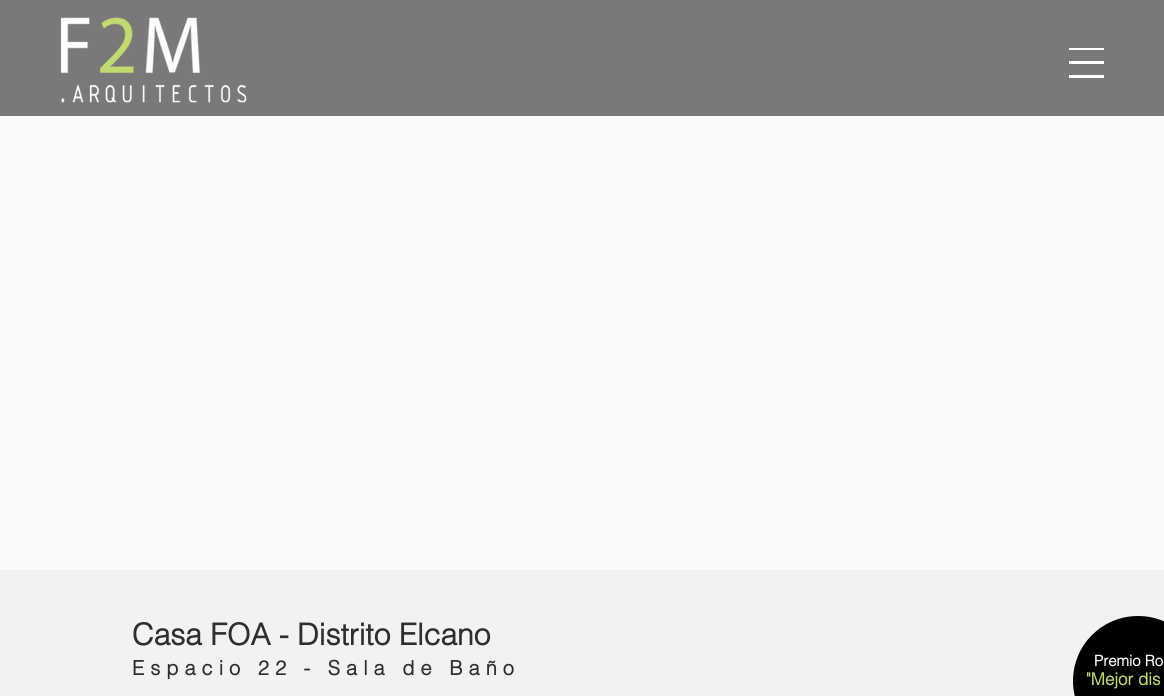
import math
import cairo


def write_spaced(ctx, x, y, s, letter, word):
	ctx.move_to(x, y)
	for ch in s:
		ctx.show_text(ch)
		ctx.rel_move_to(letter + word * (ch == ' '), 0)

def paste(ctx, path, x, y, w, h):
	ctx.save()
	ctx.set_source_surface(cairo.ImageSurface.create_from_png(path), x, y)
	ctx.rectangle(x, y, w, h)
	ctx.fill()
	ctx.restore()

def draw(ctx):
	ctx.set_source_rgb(0.949, 0.949, 0.949)
	ctx.paint()
	ctx.set_source_rgb(0.475, 0.475, 0.475)
	ctx.rectangle(0, 0, 1164, 116)
	ctx.fill()
	paste(ctx, 'media/1.png', 60, 17, 187, 86)
	ctx.set_source_rgb(1, 1, 1)
	ctx.rectangle(1069, 48, 35, 2)
	ctx.rectangle(1069, 61, 35, 3)
	ctx.rectangle(1069, 75, 35, 3)
	ctx.fill()
	ctx.set_source_rgb(0.98, 0.98, 0.98)
	ctx.rectangle(0, 116, 1164, 454)
	ctx.fill()
	ctx.select_font_face('helvetica', cairo.FONT_SLANT_NORMAL, cairo.FONT_WEIGHT_BOLD)
	ctx.set_font_size(30)
	ctx.set_source_rgb(0.184, 0.18, 0.18)
	ctx.move_to(132, 645)
	ctx.show_text('Casa FOA - Distrito Elcano')
	ctx.set_font_size(20)
	write_spaced(ctx, 132, 675, 'Espacio 22 - Sala de Baño', 6, 0)
	ctx.set_source_rgb(0, 0, 0)
	ctx.new_path()
	ctx.move_to(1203, 681)
	ctx.curve_to(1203, 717, 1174, 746, 1138, 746)
	ctx.curve_to(1102, 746, 1073, 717, 1073, 681)
	ctx.curve_to(1073, 645, 1102, 616, 1138, 616)
	ctx.curve_to(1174, 616, 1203, 645, 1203, 681)
	ctx.close_path()
	ctx.fill()
	ctx.set_font_size(15)
	ctx.set_source_rgb(1, 1, 1)
	ctx.move_to(1094, 666)
	ctx.show_text('Premio Ro')
	ctx.set_font_size(17)
	ctx.set_source_rgb(0.757, 0.855, 0.443)
	ctx.move_to(1086, 685)
	ctx.show_text('"Mejor dis')


surface = cairo.ImageSurface(cairo.FORMAT_RGB24, 1164, 696)
ctx = cairo.Context(surface)
options = cairo.FontOptions()
options.set_hint_metrics(cairo.HINT_METRICS_OFF)
options.set_hint_style(cairo.HINT_STYLE_NONE)
ctx.set_font_options(options)
ctx.set_miter_limit(4)
draw(ctx)
surface.write_to_png('image.png')
